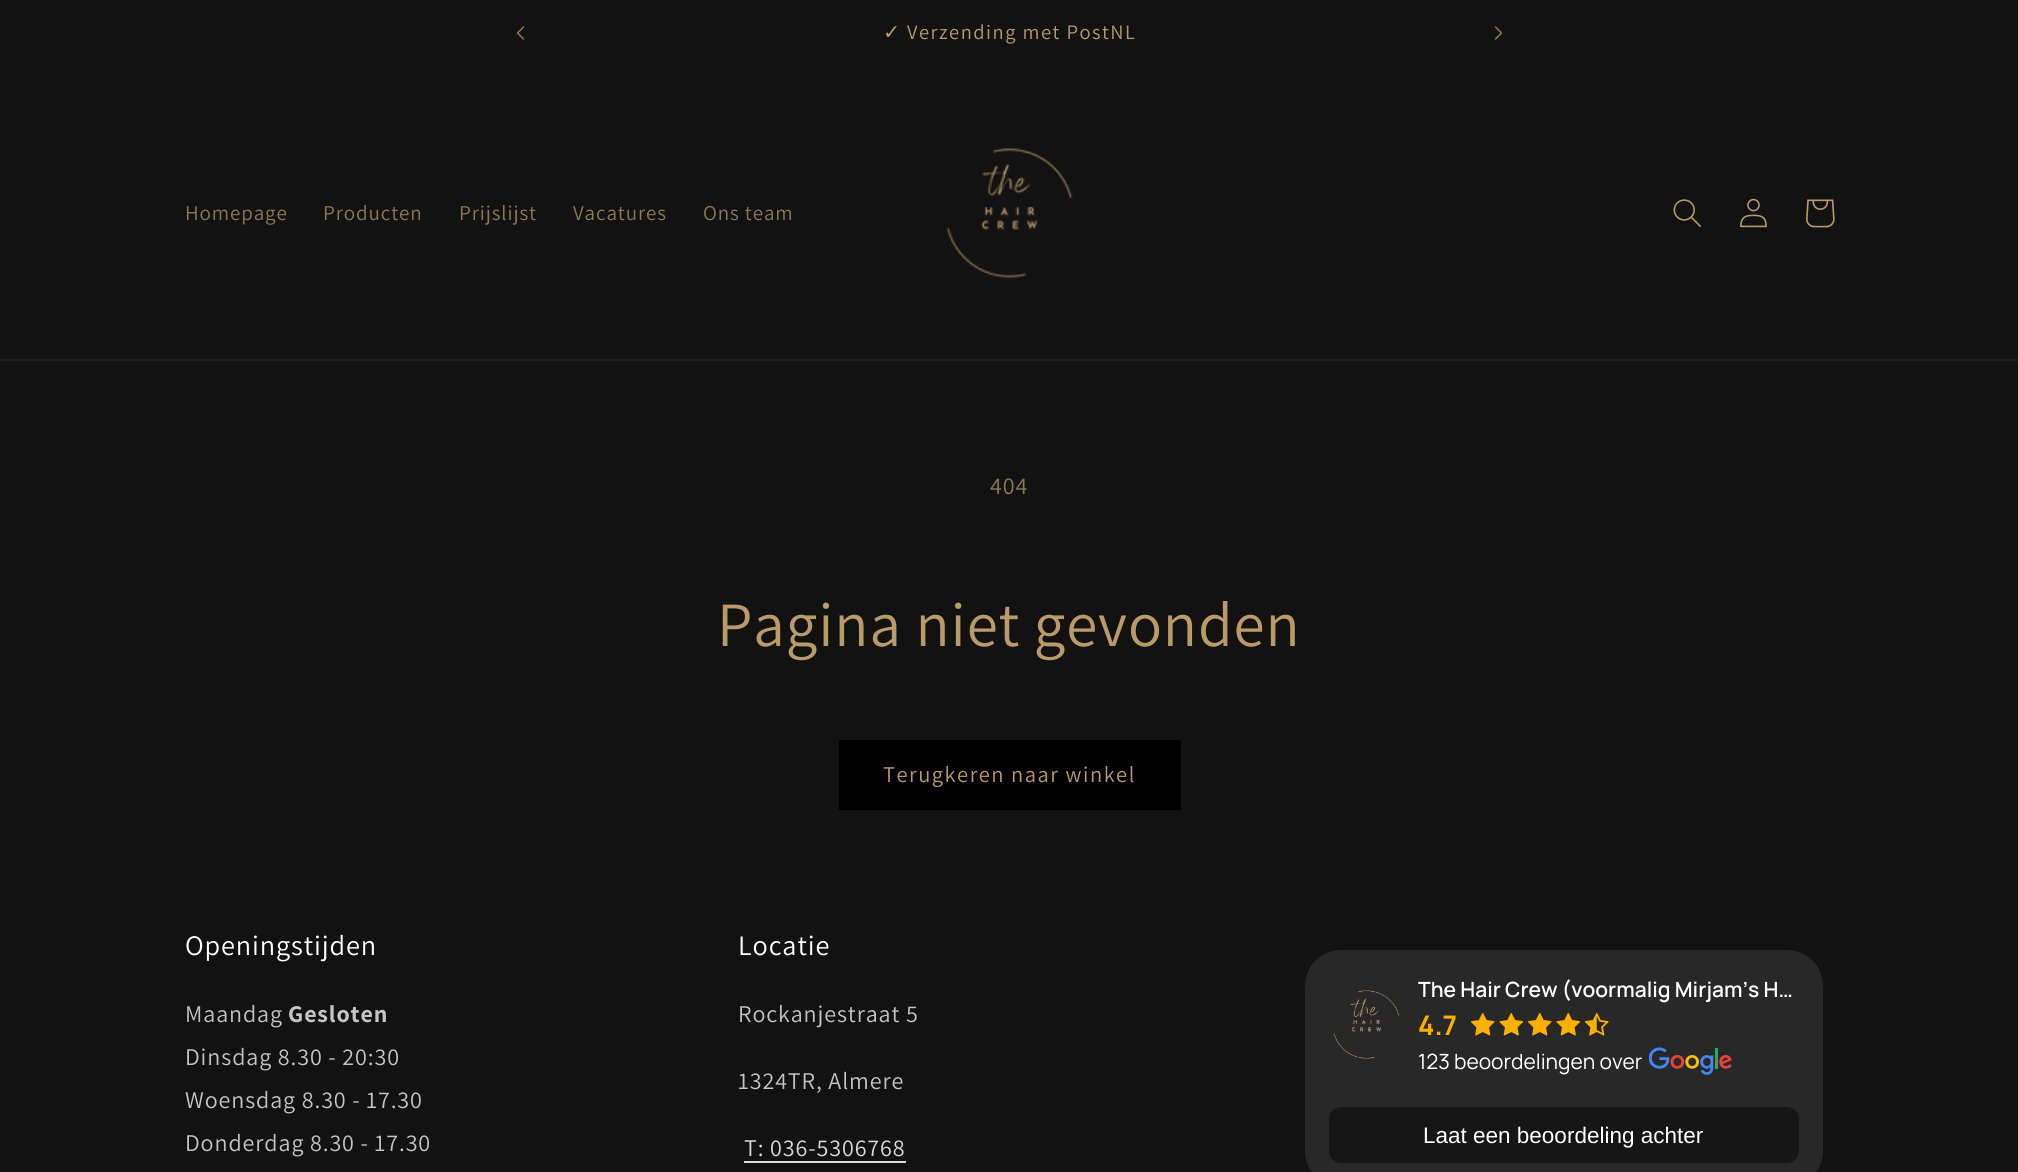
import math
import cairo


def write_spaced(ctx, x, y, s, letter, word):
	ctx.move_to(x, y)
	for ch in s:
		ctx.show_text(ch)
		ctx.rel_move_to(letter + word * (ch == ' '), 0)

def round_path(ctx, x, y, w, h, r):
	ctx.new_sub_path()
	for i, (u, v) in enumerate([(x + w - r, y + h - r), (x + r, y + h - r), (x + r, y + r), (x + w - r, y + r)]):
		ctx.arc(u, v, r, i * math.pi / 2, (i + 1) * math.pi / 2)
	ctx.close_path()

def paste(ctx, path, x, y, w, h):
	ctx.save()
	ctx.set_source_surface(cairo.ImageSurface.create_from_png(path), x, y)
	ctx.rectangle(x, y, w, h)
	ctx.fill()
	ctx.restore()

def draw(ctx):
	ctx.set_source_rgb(0.071, 0.071, 0.071)
	ctx.paint()
	paste(ctx, 'media/1.png', 516, 26, 9, 14)
	ctx.select_font_face('DejaVu Sans')
	ctx.set_font_size(20.5)
	ctx.set_source_rgb(0.729, 0.604, 0.404)
	write_spaced(ctx, 883, 39, '✓', 1.5, 0)
	ctx.select_font_face('Assistant')
	write_spaced(ctx, 907, 39, 'Verzending met PostNL', 1.5, 0)
	paste(ctx, 'media/2.png', 1494, 26, 9, 14)
	ctx.set_source_rgb(0.122, 0.114, 0.098)
	ctx.rectangle(0, 359, 2018, 2)
	ctx.fill()
	ctx.set_font_size(21)
	ctx.set_source_rgb(0.565, 0.471, 0.322)
	for x, y, s in [
		(185, 220, 'Homepage'),
		(323, 220, 'Producten'),
		(459, 220, 'Prijslijst'),
		(573, 220, 'Vacatures'),
		(703, 220, 'Ons team'),
	]:
		write_spaced(ctx, x, y, s, 0.9, 0)
	paste(ctx, 'media/3.png', 946, 148, 127, 130)
	paste(ctx, 'media/4.png', 1673, 199, 28, 28)
	paste(ctx, 'media/5.png', 1740, 198, 27, 30)
	paste(ctx, 'media/6.png', 1806, 199, 29, 29)
	ctx.set_font_size(24)
	write_spaced(ctx, 990, 494, '404', 0.9, 0)
	ctx.set_font_size(63)
	ctx.set_source_rgb(0.729, 0.604, 0.404)
	write_spaced(ctx, 717, 646, 'Pagina niet gevonden', 0.9, 0)
	ctx.set_source_rgb(0, 0, 0)
	ctx.rectangle(839, 740, 342, 70)
	ctx.fill()
	ctx.set_font_size(22.5)
	ctx.set_source_rgb(0.729, 0.604, 0.404)
	write_spaced(ctx, 883, 782, 'Terugkeren naar winkel', 1.5, 0)
	ctx.set_font_size(28.25)
	ctx.set_source_rgb(1, 1, 1)
	write_spaced(ctx, 185, 955, 'Openingstijden', 0.9, 0)
	ctx.set_font_size(24)
	ctx.set_source_rgb(0.769, 0.769, 0.769)
	write_spaced(ctx, 185, 1022, 'Maandag', 0.9, 0)
	ctx.select_font_face('Assistant', cairo.FONT_SLANT_NORMAL, cairo.FONT_WEIGHT_BOLD)
	write_spaced(ctx, 288, 1022, 'Gesloten', 0.9, 0)
	ctx.select_font_face('Assistant')
	for x, y, s in [
		(185, 1065, 'Dinsdag 8.30 - 20:30'),
		(185, 1108, 'Woensdag 8.30 - 17.30'),
		(185, 1151, 'Donderdag 8.30 - 17.30'),
	]:
		write_spaced(ctx, x, y, s, 0.9, 0)
	ctx.set_font_size(28.25)
	ctx.set_source_rgb(1, 1, 1)
	write_spaced(ctx, 738, 955, 'Locatie', 0.9, 0)
	ctx.set_font_size(24)
	ctx.set_source_rgb(0.769, 0.769, 0.769)
	write_spaced(ctx, 738, 1022, 'Rockanjestraat 5', 0.9, 0)
	write_spaced(ctx, 738, 1089, '1324TR, Almere', 0.9, 0)
	ctx.set_source_rgb(0.859, 0.859, 0.859)
	write_spaced(ctx, 744, 1156, 'T: 036-5306768', 0.9, 0)
	ctx.rectangle(744, 1161, 162, 2)
	ctx.fill()
	ctx.set_source_rgb(0.157, 0.157, 0.157)
	round_path(ctx, 1305, 950, 518, 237, 36)
	ctx.fill()
	paste(ctx, 'media/7.png', 1333, 990, 67, 69)
	ctx.select_font_face('Manrope SemiBold')
	ctx.set_font_size(21)
	ctx.set_source_rgb(1, 1, 1)
	ctx.move_to(1418, 997)
	ctx.show_text('The Hair Crew (voormalig Mirjam’s H…')
	ctx.select_font_face('Manrope', cairo.FONT_SLANT_NORMAL, cairo.FONT_WEIGHT_BOLD)
	ctx.set_font_size(27)
	ctx.set_source_rgb(0.984, 0.69, 0)
	ctx.move_to(1418, 1035)
	ctx.show_text('4.7')
	paste(ctx, 'media/8.png', 1471, 1013, 24, 23)
	paste(ctx, 'media/9.png', 1499, 1013, 24, 23)
	paste(ctx, 'media/8.png', 1528, 1013, 24, 23)
	paste(ctx, 'media/9.png', 1556, 1013, 24, 23)
	paste(ctx, 'media/10.png', 1584, 1013, 25, 23)
	ctx.select_font_face('Manrope')
	ctx.set_font_size(21)
	ctx.set_source_rgb(1, 1, 1)
	ctx.move_to(1418, 1069)
	ctx.show_text('123 beoordelingen over')
	paste(ctx, 'media/11.png', 1649, 1047, 83, 28)
	ctx.set_source_rgb(0.086, 0.086, 0.086)
	round_path(ctx, 1329, 1107, 470, 56, 12)
	ctx.fill()
	ctx.select_font_face('Liberation Sans')
	ctx.set_font_size(22.5)
	ctx.set_source_rgb(1, 1, 1)
	ctx.move_to(1423, 1143)
	ctx.show_text('Laat een beoordeling achter')


surface = cairo.ImageSurface(cairo.FORMAT_RGB24, 2018, 1172)
ctx = cairo.Context(surface)
options = cairo.FontOptions()
options.set_hint_metrics(cairo.HINT_METRICS_OFF)
options.set_hint_style(cairo.HINT_STYLE_NONE)
ctx.set_font_options(options)
ctx.set_miter_limit(4)
draw(ctx)
surface.write_to_png('image.png')
